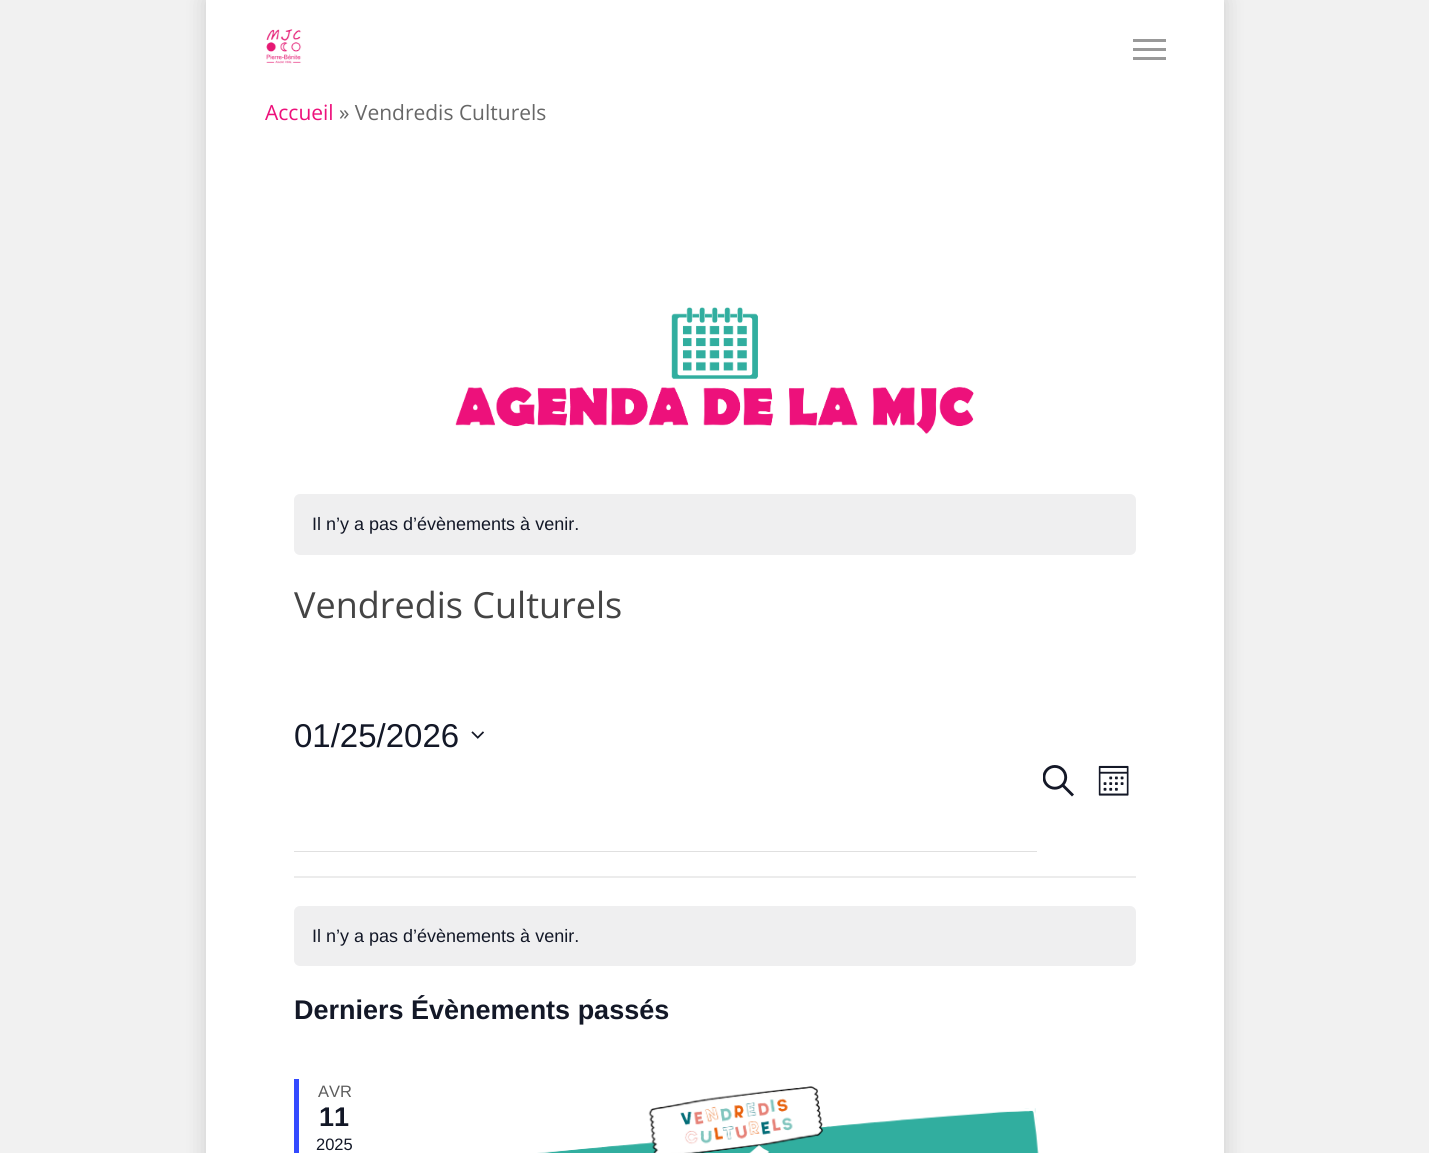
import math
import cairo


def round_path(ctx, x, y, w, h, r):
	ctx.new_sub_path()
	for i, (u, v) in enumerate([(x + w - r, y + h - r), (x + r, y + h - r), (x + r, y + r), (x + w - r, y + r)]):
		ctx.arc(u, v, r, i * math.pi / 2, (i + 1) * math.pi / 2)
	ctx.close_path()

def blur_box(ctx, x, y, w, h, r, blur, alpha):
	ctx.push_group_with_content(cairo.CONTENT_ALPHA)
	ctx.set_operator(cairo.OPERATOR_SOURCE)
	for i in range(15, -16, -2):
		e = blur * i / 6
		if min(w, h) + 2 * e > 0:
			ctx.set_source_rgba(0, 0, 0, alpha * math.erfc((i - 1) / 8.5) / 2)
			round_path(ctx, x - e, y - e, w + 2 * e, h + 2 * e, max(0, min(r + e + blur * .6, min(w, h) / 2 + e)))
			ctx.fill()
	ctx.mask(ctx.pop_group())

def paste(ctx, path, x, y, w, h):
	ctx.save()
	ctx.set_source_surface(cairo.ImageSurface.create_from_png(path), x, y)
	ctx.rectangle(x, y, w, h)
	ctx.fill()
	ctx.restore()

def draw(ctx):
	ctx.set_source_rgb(0.945, 0.945, 0.945)
	ctx.paint()
	ctx.set_source_rgb(0, 0, 0)
	blur_box(ctx, 206, 0, 1018, 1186, 0, 11, 0.15)
	ctx.set_source_rgb(1, 1, 1)
	ctx.rectangle(206, 0, 1018, 1153)
	ctx.fill()
	paste(ctx, 'media/1.png', 266, 29, 36, 35)
	ctx.set_source_rgb(0.6, 0.6, 0.6)
	ctx.rectangle(1133, 39, 33, 3)
	ctx.rectangle(1133, 57, 33, 3)
	ctx.rectangle(1133, 48, 33, 3)
	ctx.fill()
	ctx.select_font_face('Open Sans')
	ctx.set_font_size(21)
	ctx.set_source_rgb(0.929, 0.067, 0.482)
	ctx.move_to(265, 120)
	ctx.show_text('Accueil')
	ctx.set_source_rgb(0.404, 0.404, 0.404)
	ctx.move_to(339, 120)
	ctx.show_text('» Vendredis Culturels')
	paste(ctx, 'media/2.png', 455, 307, 519, 127)
	ctx.set_source_rgb(0.937, 0.937, 0.941)
	round_path(ctx, 294, 494, 842, 61, 6)
	ctx.fill()
	ctx.select_font_face('Liberation Sans')
	ctx.set_font_size(18)
	ctx.set_source_rgb(0.078, 0.094, 0.153)
	ctx.move_to(312, 530)
	ctx.show_text('Il n’y a pas d’évènements à venir.')
	ctx.select_font_face('Open Sans')
	ctx.set_font_size(36)
	ctx.set_source_rgb(0.267, 0.267, 0.267)
	ctx.move_to(294, 618)
	ctx.show_text('Vendredis Culturels')
	ctx.select_font_face('Liberation Sans')
	ctx.set_font_size(33)
	ctx.set_source_rgb(0.078, 0.094, 0.153)
	ctx.move_to(294, 747)
	ctx.show_text('01/25/2026')
	paste(ctx, 'media/3.png', 471, 731, 13, 8)
	ctx.set_source_rgb(0.878, 0.878, 0.878)
	ctx.rectangle(294, 851, 743, 1)
	ctx.fill()
	paste(ctx, 'media/4.png', 1043, 765, 31, 32)
	paste(ctx, 'media/5.png', 1098, 765, 31, 31)
	ctx.set_source_rgb(0.925, 0.925, 0.925)
	ctx.rectangle(294, 876, 842, 2)
	ctx.fill()
	ctx.set_source_rgb(0.937, 0.937, 0.941)
	round_path(ctx, 294, 906, 842, 60, 6)
	ctx.fill()
	ctx.set_font_size(18)
	ctx.set_source_rgb(0.078, 0.094, 0.153)
	ctx.move_to(312, 942)
	ctx.show_text('Il n’y a pas d’évènements à venir.')
	ctx.select_font_face('Liberation Sans', cairo.FONT_SLANT_NORMAL, cairo.FONT_WEIGHT_BOLD)
	ctx.set_font_size(27)
	ctx.move_to(294, 1019)
	ctx.show_text('Derniers Évènements passés')
	ctx.set_source_rgb(0.2, 0.29, 1)
	ctx.rectangle(294, 1079, 5, 74)
	ctx.fill()
	ctx.select_font_face('Liberation Sans')
	ctx.set_font_size(16.5)
	ctx.set_source_rgb(0.365, 0.365, 0.365)
	ctx.move_to(318, 1097)
	ctx.show_text('AVR')
	ctx.select_font_face('Liberation Sans', cairo.FONT_SLANT_NORMAL, cairo.FONT_WEIGHT_BOLD)
	ctx.set_font_size(27)
	ctx.set_source_rgb(0.078, 0.094, 0.153)
	ctx.move_to(319, 1126)
	ctx.show_text('11')
	ctx.select_font_face('Liberation Sans')
	ctx.set_font_size(16.5)
	ctx.move_to(316, 1150)
	ctx.show_text('2025')
	paste(ctx, 'media/6.png', 537, 1086, 502, 67)


surface = cairo.ImageSurface(cairo.FORMAT_RGB24, 1429, 1153)
ctx = cairo.Context(surface)
options = cairo.FontOptions()
options.set_hint_metrics(cairo.HINT_METRICS_OFF)
options.set_hint_style(cairo.HINT_STYLE_NONE)
ctx.set_font_options(options)
ctx.set_miter_limit(4)
draw(ctx)
surface.write_to_png('image.png')
